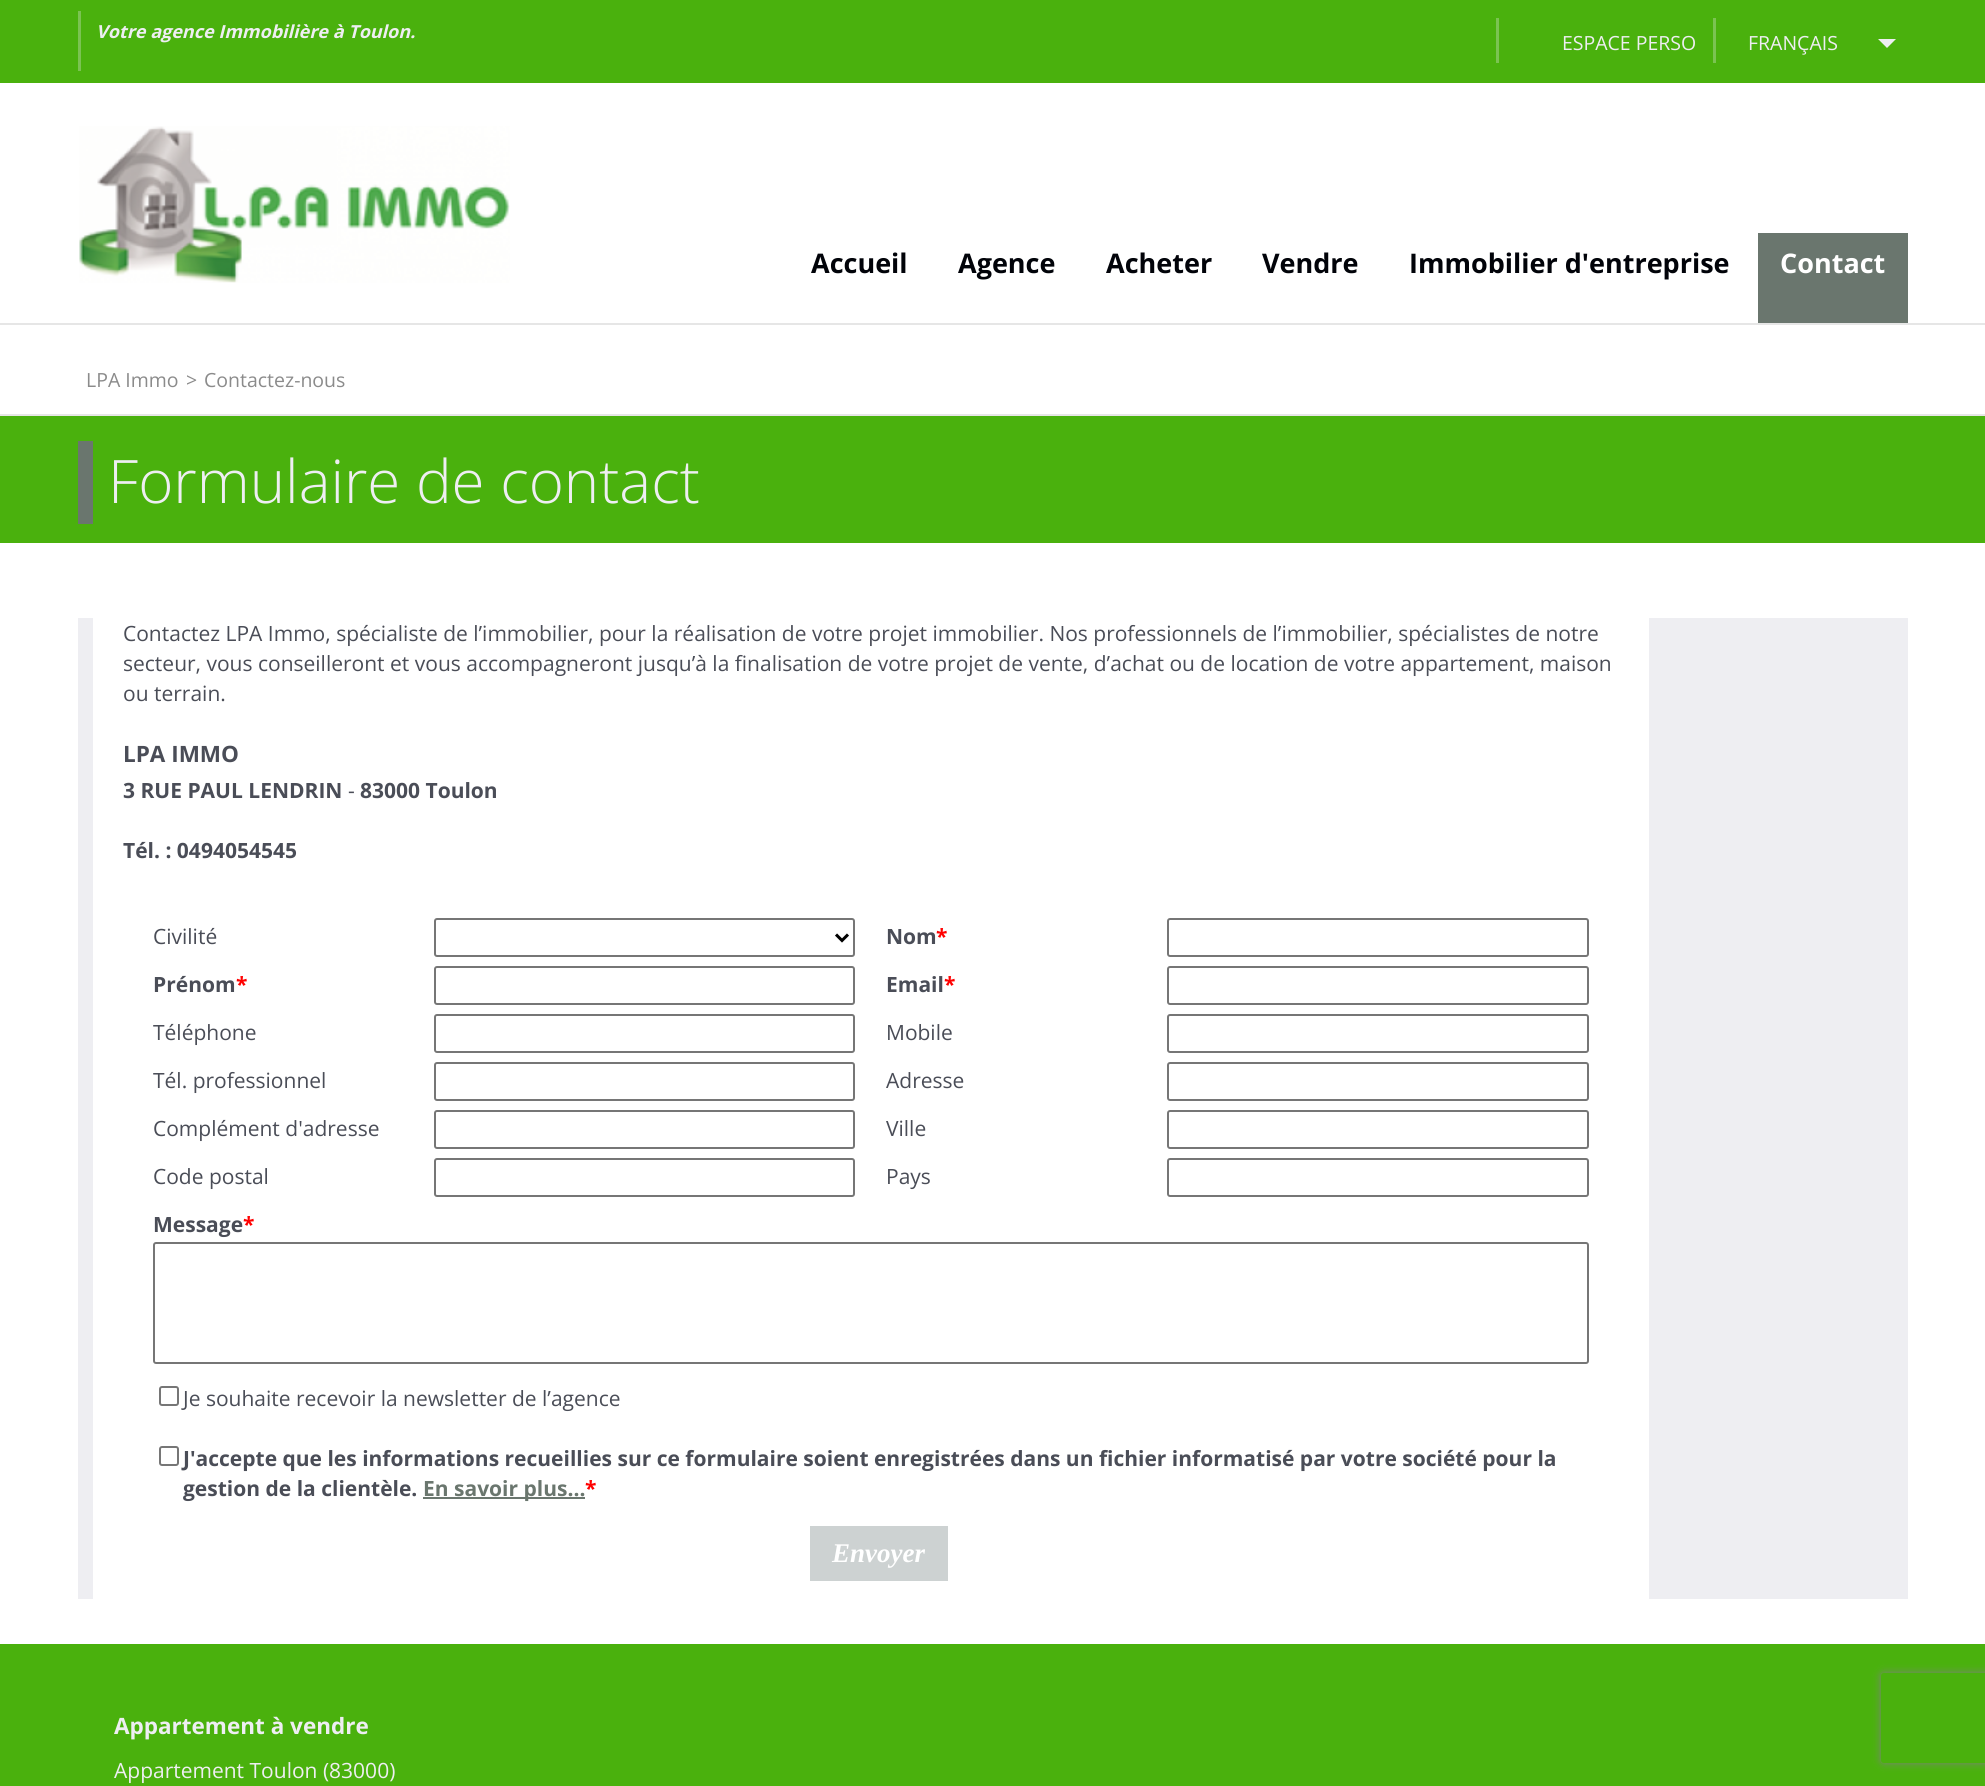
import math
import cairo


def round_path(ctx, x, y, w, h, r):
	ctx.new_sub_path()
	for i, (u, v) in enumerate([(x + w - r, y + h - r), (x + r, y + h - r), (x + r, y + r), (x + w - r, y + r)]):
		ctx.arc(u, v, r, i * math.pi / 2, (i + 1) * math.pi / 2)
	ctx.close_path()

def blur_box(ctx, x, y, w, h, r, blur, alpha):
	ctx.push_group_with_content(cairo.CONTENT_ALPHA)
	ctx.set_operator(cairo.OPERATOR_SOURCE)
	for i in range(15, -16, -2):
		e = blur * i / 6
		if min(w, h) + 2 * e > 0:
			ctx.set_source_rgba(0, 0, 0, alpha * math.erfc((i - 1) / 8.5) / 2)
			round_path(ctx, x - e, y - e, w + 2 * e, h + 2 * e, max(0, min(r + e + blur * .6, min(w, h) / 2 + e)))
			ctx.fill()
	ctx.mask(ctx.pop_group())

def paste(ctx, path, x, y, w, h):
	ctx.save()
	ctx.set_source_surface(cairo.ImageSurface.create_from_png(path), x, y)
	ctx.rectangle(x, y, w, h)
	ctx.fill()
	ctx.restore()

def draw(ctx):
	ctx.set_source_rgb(1, 1, 1)
	ctx.paint()
	ctx.set_source_rgb(0.29, 0.694, 0.051)
	ctx.rectangle(0, 0, 1985, 83)
	ctx.fill()
	ctx.set_source_rgb(0.482, 0.765, 0.322)
	ctx.rectangle(78, 11, 3, 60)
	ctx.fill()
	ctx.select_font_face('Open Sans', cairo.FONT_SLANT_ITALIC, cairo.FONT_WEIGHT_BOLD)
	ctx.set_font_size(18)
	ctx.set_source_rgb(0.933, 0.933, 0.949)
	ctx.move_to(96, 38)
	ctx.show_text('Votre agence Immobilière à Toulon.')
	ctx.set_source_rgb(0.482, 0.765, 0.322)
	ctx.rectangle(1713, 18, 3, 45)
	ctx.fill()
	ctx.rectangle(1496, 18, 3, 45)
	ctx.fill()
	ctx.select_font_face('Open Sans')
	ctx.set_font_size(19.5)
	ctx.set_source_rgb(0.933, 0.933, 0.949)
	ctx.move_to(1562, 50)
	ctx.show_text('ESPACE PERSO')
	ctx.move_to(1748, 50)
	ctx.show_text('FRANÇAIS')
	ctx.new_path()
	ctx.move_to(1878, 39)
	ctx.line_to(1896, 39)
	ctx.line_to(1887, 48)
	ctx.close_path()
	ctx.fill()
	ctx.set_source_rgb(0.902, 0.902, 0.902)
	ctx.rectangle(0, 323, 1985, 2)
	ctx.fill()
	paste(ctx, 'media/1.png', 79, 126, 431, 157)
	ctx.select_font_face('Open Sans', cairo.FONT_SLANT_NORMAL, cairo.FONT_WEIGHT_BOLD)
	ctx.set_font_size(27)
	ctx.set_source_rgb(0.004, 0.012, 0.039)
	for x, y, s in [
		(811, 273, 'Accueil'),
		(958, 273, 'Agence'),
		(1106, 273, 'Acheter'),
		(1262, 273, 'Vendre'),
		(1409, 273, 'Immobilier d\'entreprise'),
	]:
		ctx.move_to(x, y)
		ctx.show_text(s)
	ctx.set_source_rgb(0.416, 0.463, 0.431)
	ctx.rectangle(1758, 233, 150, 90)
	ctx.fill()
	ctx.set_source_rgb(1, 1, 1)
	ctx.move_to(1780, 273)
	ctx.show_text('Contact')
	ctx.set_source_rgb(0.902, 0.902, 0.902)
	ctx.rectangle(0, 414, 1985, 2)
	ctx.fill()
	ctx.select_font_face('Open Sans')
	ctx.set_font_size(19.5)
	ctx.set_source_rgb(0.545, 0.545, 0.545)
	for x, y, s in [
		(86, 387, 'LPA Immo'),
		(186, 387, '>'),
		(204, 387, 'Contactez-nous'),
	]:
		ctx.move_to(x, y)
		ctx.show_text(s)
	ctx.set_source_rgb(0.29, 0.694, 0.051)
	ctx.rectangle(0, 416, 1985, 127)
	ctx.fill()
	ctx.set_source_rgb(0.416, 0.463, 0.431)
	ctx.rectangle(78, 441, 15, 83)
	ctx.fill()
	ctx.select_font_face('Open Sans Light')
	ctx.set_font_size(60)
	ctx.set_source_rgb(0.933, 0.933, 0.949)
	ctx.move_to(108, 503)
	ctx.show_text('Formulaire de contact')
	ctx.rectangle(78, 618, 1830, 981)
	ctx.fill()
	ctx.set_source_rgb(1, 1, 1)
	ctx.rectangle(93, 618, 1556, 981)
	ctx.fill()
	ctx.select_font_face('Open Sans')
	ctx.set_font_size(21)
	ctx.set_source_rgb(0.29, 0.302, 0.341)
	for x, y, s in [
		(123, 641, 'Contactez LPA Immo, spécialiste de l’immobilier, pour la réalisation de votre projet immobilier. Nos professionnels de l’immobilier, spécialistes de notre'),
		(123, 671, 'secteur, vous conseilleront et vous accompagneront jusqu’à la finalisation de votre projet de vente, d’achat ou de location de votre appartement, maison'),
		(123, 701, 'ou terrain.'),
	]:
		ctx.move_to(x, y)
		ctx.show_text(s)
	ctx.select_font_face('Open Sans', cairo.FONT_SLANT_NORMAL, cairo.FONT_WEIGHT_BOLD)
	ctx.set_font_size(22.5)
	ctx.move_to(123, 762)
	ctx.show_text('LPA IMMO')
	ctx.set_font_size(21)
	ctx.move_to(123, 798)
	ctx.show_text('3 RUE PAUL LENDRIN')
	ctx.select_font_face('Open Sans')
	ctx.move_to(348, 798)
	ctx.show_text('-')
	ctx.select_font_face('Open Sans', cairo.FONT_SLANT_NORMAL, cairo.FONT_WEIGHT_BOLD)
	ctx.move_to(360, 798)
	ctx.show_text('83000 Toulon')
	ctx.move_to(123, 858)
	ctx.show_text('Tél. : 0494054545')
	ctx.select_font_face('Open Sans')
	ctx.move_to(153, 944)
	ctx.show_text('Civilité')
	round_path(ctx, 435, 919, 419, 37, 2)
	ctx.set_source_rgb(0.463, 0.463, 0.463)
	ctx.stroke()
	ctx.new_path()
	ctx.move_to(836, 934.5)
	ctx.line_to(842, 940.5)
	ctx.line_to(848, 934.5)
	ctx.set_source_rgb(0, 0, 0)
	ctx.set_line_width(3)
	ctx.stroke()
	ctx.select_font_face('Open Sans', cairo.FONT_SLANT_NORMAL, cairo.FONT_WEIGHT_BOLD)
	ctx.set_source_rgb(0.29, 0.302, 0.341)
	ctx.move_to(886, 944)
	ctx.show_text('Nom')
	ctx.set_source_rgb(1, 0, 0)
	ctx.move_to(936, 944)
	ctx.show_text('*')
	round_path(ctx, 1168, 919, 420, 37, 2)
	ctx.set_source_rgb(0.463, 0.463, 0.463)
	ctx.set_line_width(2)
	ctx.stroke()
	ctx.set_source_rgb(0.29, 0.302, 0.341)
	ctx.move_to(153, 992)
	ctx.show_text('Prénom')
	ctx.set_source_rgb(1, 0, 0)
	ctx.move_to(236, 992)
	ctx.show_text('*')
	round_path(ctx, 435, 967, 419, 37, 2)
	ctx.set_source_rgb(0.463, 0.463, 0.463)
	ctx.stroke()
	ctx.set_source_rgb(0.29, 0.302, 0.341)
	ctx.move_to(886, 992)
	ctx.show_text('Email')
	ctx.set_source_rgb(1, 0, 0)
	ctx.move_to(944, 992)
	ctx.show_text('*')
	round_path(ctx, 1168, 967, 420, 37, 2)
	ctx.set_source_rgb(0.463, 0.463, 0.463)
	ctx.stroke()
	ctx.select_font_face('Open Sans')
	ctx.set_source_rgb(0.29, 0.302, 0.341)
	ctx.move_to(153, 1040)
	ctx.show_text('Téléphone')
	round_path(ctx, 435, 1015, 419, 37, 2)
	ctx.set_source_rgb(0.463, 0.463, 0.463)
	ctx.stroke()
	ctx.set_source_rgb(0.29, 0.302, 0.341)
	ctx.move_to(886, 1040)
	ctx.show_text('Mobile')
	round_path(ctx, 1168, 1015, 420, 37, 2)
	ctx.set_source_rgb(0.463, 0.463, 0.463)
	ctx.stroke()
	ctx.set_source_rgb(0.29, 0.302, 0.341)
	ctx.move_to(153, 1088)
	ctx.show_text('Tél. professionnel')
	round_path(ctx, 435, 1063, 419, 37, 2)
	ctx.set_source_rgb(0.463, 0.463, 0.463)
	ctx.stroke()
	ctx.set_source_rgb(0.29, 0.302, 0.341)
	ctx.move_to(886, 1088)
	ctx.show_text('Adresse')
	round_path(ctx, 1168, 1063, 420, 37, 2)
	ctx.set_source_rgb(0.463, 0.463, 0.463)
	ctx.stroke()
	ctx.set_source_rgb(0.29, 0.302, 0.341)
	ctx.move_to(153, 1136)
	ctx.show_text('Complément d\'adresse')
	round_path(ctx, 435, 1111, 419, 37, 2)
	ctx.set_source_rgb(0.463, 0.463, 0.463)
	ctx.stroke()
	ctx.set_source_rgb(0.29, 0.302, 0.341)
	ctx.move_to(886, 1136)
	ctx.show_text('Ville')
	round_path(ctx, 1168, 1111, 420, 37, 2)
	ctx.set_source_rgb(0.463, 0.463, 0.463)
	ctx.stroke()
	ctx.set_source_rgb(0.29, 0.302, 0.341)
	ctx.move_to(153, 1184)
	ctx.show_text('Code postal')
	round_path(ctx, 435, 1159, 419, 37, 2)
	ctx.set_source_rgb(0.463, 0.463, 0.463)
	ctx.stroke()
	ctx.set_source_rgb(0.29, 0.302, 0.341)
	ctx.move_to(886, 1184)
	ctx.show_text('Pays')
	round_path(ctx, 1168, 1159, 420, 37, 2)
	ctx.set_source_rgb(0.463, 0.463, 0.463)
	ctx.stroke()
	ctx.select_font_face('Open Sans', cairo.FONT_SLANT_NORMAL, cairo.FONT_WEIGHT_BOLD)
	ctx.set_source_rgb(0.29, 0.302, 0.341)
	ctx.move_to(153, 1232)
	ctx.show_text('Message')
	ctx.set_source_rgb(1, 0, 0)
	ctx.move_to(243, 1232)
	ctx.show_text('*')
	round_path(ctx, 154, 1243, 1434, 120, 2)
	ctx.set_source_rgb(0.463, 0.463, 0.463)
	ctx.stroke()
	round_path(ctx, 160, 1387, 18, 18, 2)
	ctx.stroke()
	ctx.select_font_face('Open Sans')
	ctx.set_source_rgb(0.29, 0.302, 0.341)
	ctx.move_to(183, 1406)
	ctx.show_text('Je souhaite recevoir la newsletter de l’agence')
	round_path(ctx, 160, 1447, 18, 18, 2)
	ctx.set_source_rgb(0.463, 0.463, 0.463)
	ctx.stroke()
	ctx.select_font_face('Open Sans', cairo.FONT_SLANT_NORMAL, cairo.FONT_WEIGHT_BOLD)
	ctx.set_source_rgb(0.29, 0.302, 0.341)
	ctx.move_to(183, 1466)
	ctx.show_text('J\'accepte que les informations recueillies sur ce formulaire soient enregistrées dans un fichier informatisé par votre société pour la')
	ctx.move_to(183, 1496)
	ctx.show_text('gestion de la clientèle.')
	ctx.set_source_rgb(0.416, 0.463, 0.431)
	ctx.rectangle(423, 1497, 162, 2)
	ctx.fill()
	ctx.move_to(423, 1496)
	ctx.show_text('En savoir plus...')
	ctx.set_source_rgb(1, 0, 0)
	ctx.move_to(585, 1496)
	ctx.show_text('*')
	ctx.set_source_rgb(0.804, 0.824, 0.824)
	ctx.rectangle(810, 1526, 138, 55)
	ctx.fill()
	ctx.select_font_face('Liberation Serif', cairo.FONT_SLANT_ITALIC, cairo.FONT_WEIGHT_BOLD)
	ctx.set_font_size(27)
	ctx.set_source_rgb(1, 1, 1)
	ctx.move_to(832, 1562)
	ctx.show_text('Envoyer')
	ctx.set_source_rgb(0.29, 0.694, 0.051)
	ctx.rectangle(0, 1644, 1985, 142)
	ctx.fill()
	ctx.save()
	ctx.set_fill_rule(cairo.FILL_RULE_EVEN_ODD)
	ctx.new_path()
	ctx.move_to(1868, 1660)
	ctx.line_to(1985, 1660)
	ctx.line_to(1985, 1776)
	ctx.line_to(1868, 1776)
	ctx.close_path()
	ctx.move_to(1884, 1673)
	ctx.line_to(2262, 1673)
	ctx.curve_to(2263.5, 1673, 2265, 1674.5, 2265, 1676)
	ctx.line_to(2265, 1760)
	ctx.curve_to(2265, 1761.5, 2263.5, 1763, 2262, 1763)
	ctx.line_to(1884, 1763)
	ctx.curve_to(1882.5, 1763, 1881, 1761.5, 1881, 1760)
	ctx.line_to(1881, 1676)
	ctx.curve_to(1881, 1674.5, 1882.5, 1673, 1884, 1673)
	ctx.close_path()
	ctx.clip()
	ctx.set_source_rgb(0.502, 0.502, 0.502)
	blur_box(ctx, 1881, 1673, 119, 90, 3, 4, 1)
	ctx.restore()
	ctx.select_font_face('Open Sans', cairo.FONT_SLANT_NORMAL, cairo.FONT_WEIGHT_BOLD)
	ctx.set_font_size(22.5)
	ctx.set_source_rgb(0.933, 0.933, 0.949)
	ctx.move_to(114, 1734)
	ctx.show_text('Appartement à vendre')
	ctx.select_font_face('Open Sans')
	ctx.set_font_size(21)
	ctx.move_to(114, 1778)
	ctx.show_text('Appartement Toulon (83000)')


surface = cairo.ImageSurface(cairo.FORMAT_RGB24, 1985, 1786)
ctx = cairo.Context(surface)
options = cairo.FontOptions()
options.set_hint_metrics(cairo.HINT_METRICS_OFF)
options.set_hint_style(cairo.HINT_STYLE_NONE)
ctx.set_font_options(options)
ctx.set_miter_limit(4)
draw(ctx)
surface.write_to_png('image.png')
